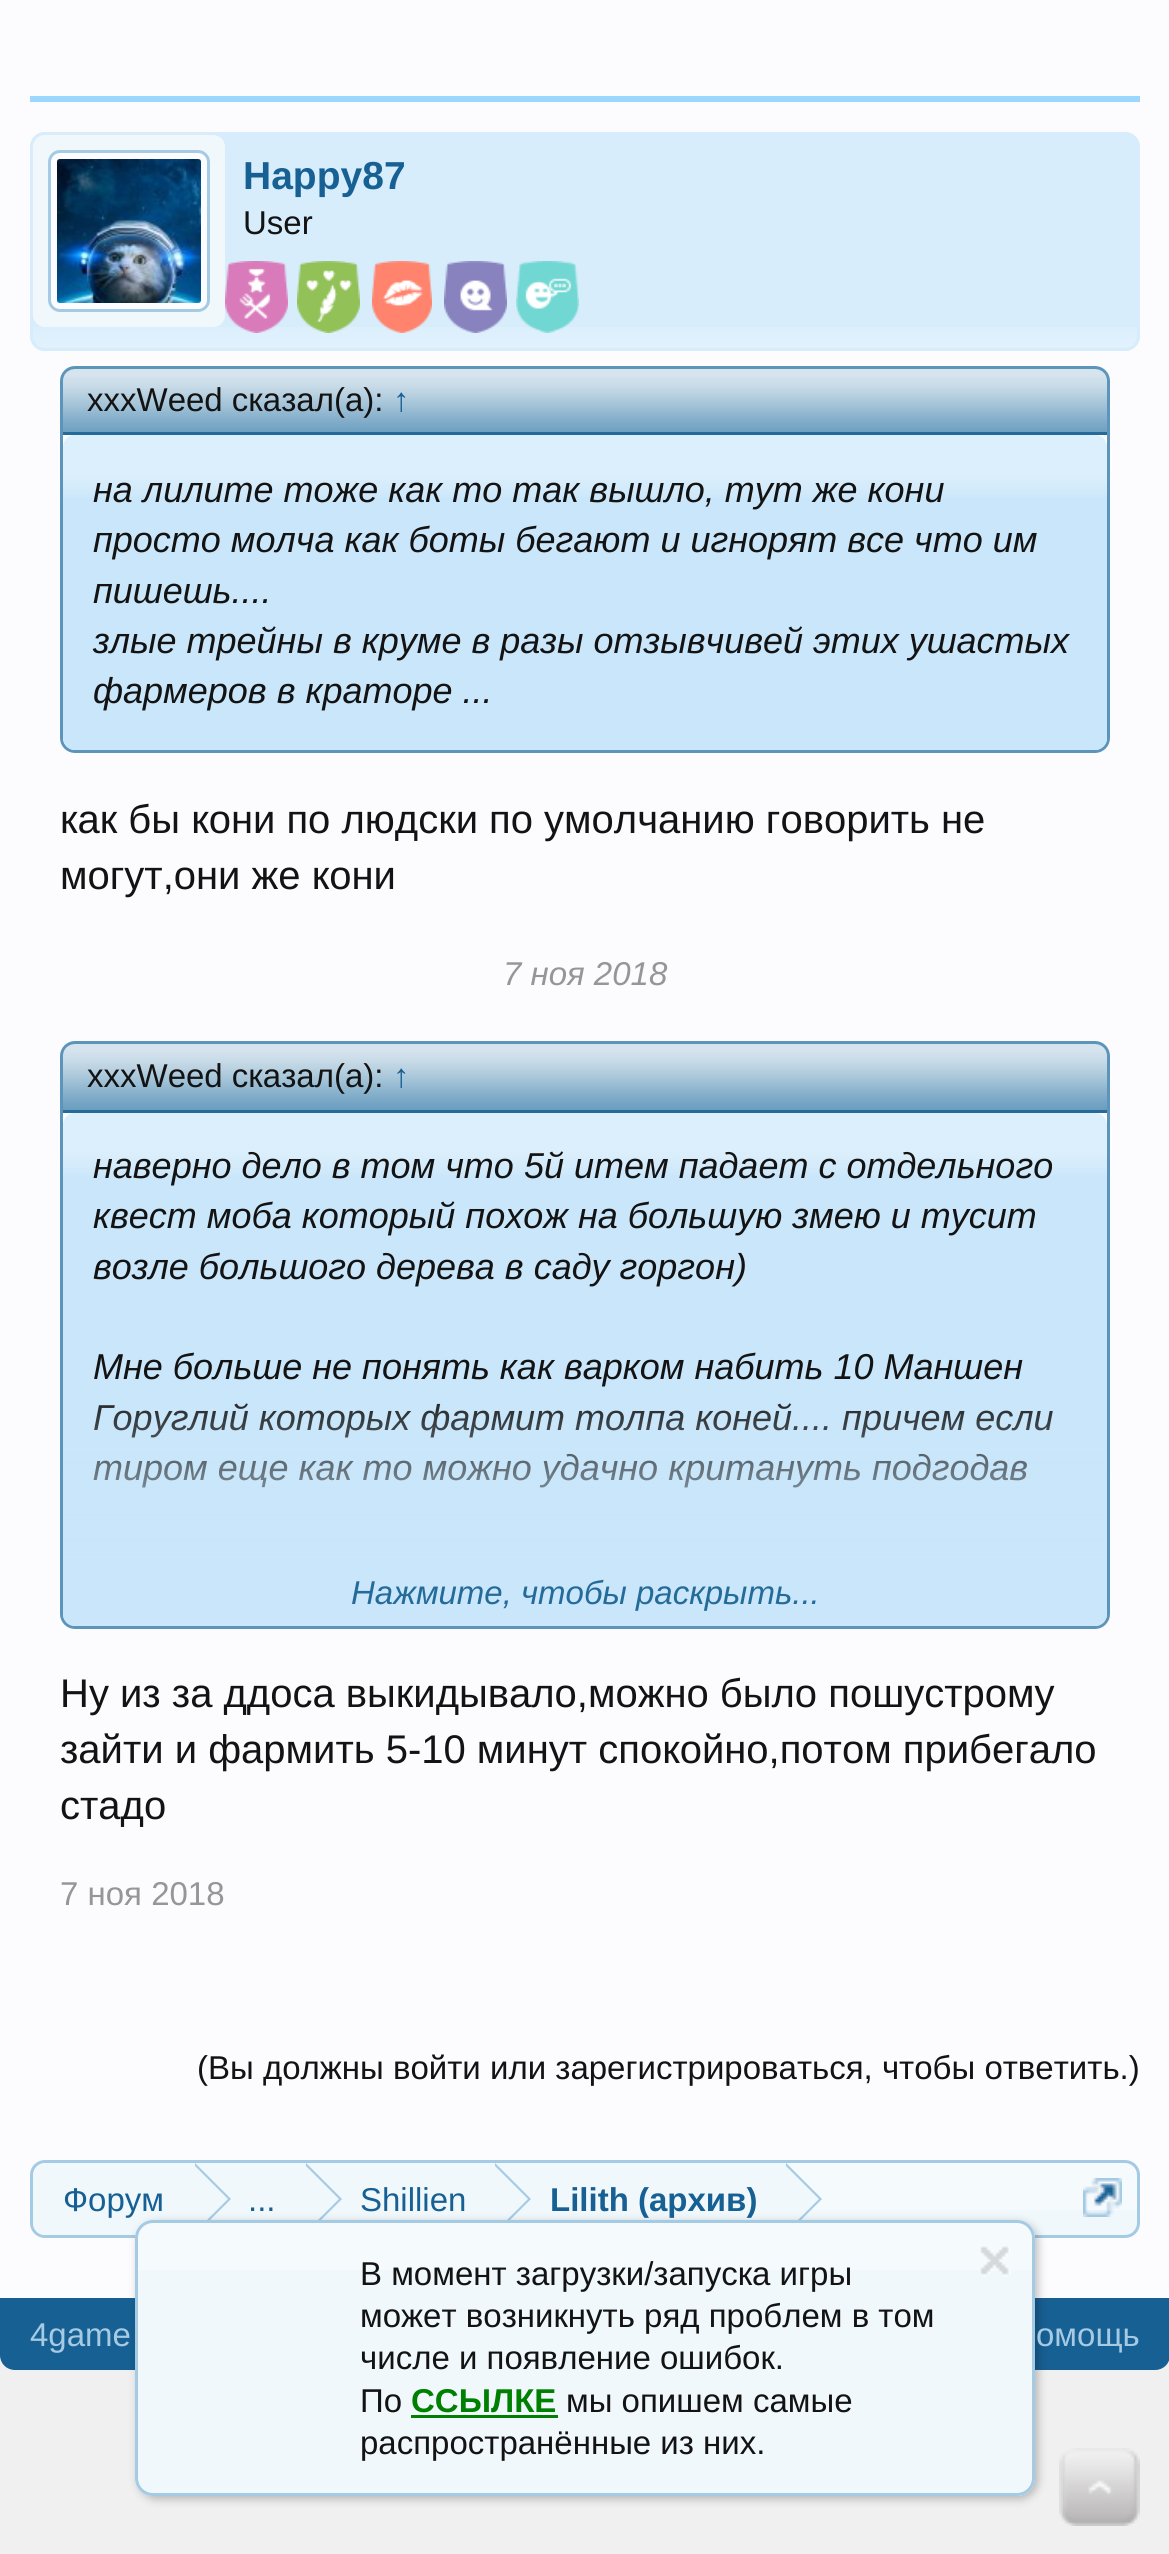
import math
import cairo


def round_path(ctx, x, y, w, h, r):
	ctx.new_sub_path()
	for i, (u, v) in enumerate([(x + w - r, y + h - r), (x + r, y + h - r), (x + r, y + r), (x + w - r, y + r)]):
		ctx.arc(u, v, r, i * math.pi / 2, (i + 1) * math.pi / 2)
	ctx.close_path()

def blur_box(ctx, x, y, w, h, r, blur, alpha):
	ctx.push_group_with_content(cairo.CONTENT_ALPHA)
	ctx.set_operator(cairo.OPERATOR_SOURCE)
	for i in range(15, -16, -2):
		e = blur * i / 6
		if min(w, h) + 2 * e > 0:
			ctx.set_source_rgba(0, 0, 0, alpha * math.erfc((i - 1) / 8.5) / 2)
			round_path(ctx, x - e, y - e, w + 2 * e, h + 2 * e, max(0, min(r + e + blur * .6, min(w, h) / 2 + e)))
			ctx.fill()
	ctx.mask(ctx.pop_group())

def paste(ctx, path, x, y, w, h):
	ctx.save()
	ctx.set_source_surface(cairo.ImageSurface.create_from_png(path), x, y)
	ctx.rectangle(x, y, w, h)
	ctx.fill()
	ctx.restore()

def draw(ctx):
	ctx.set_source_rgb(0.941, 0.941, 0.941)
	ctx.paint()
	ctx.set_source_rgb(0.988, 0.988, 1)
	ctx.rectangle(0, 0, 1169, 2298)
	ctx.fill()
	ctx.set_source_rgb(0.612, 0.843, 1)
	ctx.rectangle(30, 96, 1110, 6)
	ctx.fill()
	ctx.set_source_rgb(0.843, 0.929, 0.988)
	round_path(ctx, 30, 132, 1110, 219, 15)
	ctx.fill()
	paste(ctx, 'media/1.png', 30, 327, 1110, 21)
	round_path(ctx, 31.5, 133.5, 1107, 216, 13.5)
	ctx.set_line_width(3)
	ctx.stroke()
	ctx.set_source_rgb(0.941, 0.969, 0.988)
	round_path(ctx, 33, 135, 192, 192, 12)
	ctx.fill()
	ctx.set_source_rgb(0.988, 0.988, 1)
	round_path(ctx, 49.5, 151.5, 159, 159, 10.5)
	ctx.fill_preserve()
	ctx.set_source_rgb(0.647, 0.792, 0.894)
	ctx.stroke()
	paste(ctx, 'media/2.png', 57, 159, 144, 144)
	ctx.select_font_face('Liberation Sans', cairo.FONT_SLANT_NORMAL, cairo.FONT_WEIGHT_BOLD)
	ctx.set_font_size(39)
	ctx.set_source_rgb(0.09, 0.376, 0.576)
	ctx.move_to(243, 189)
	ctx.show_text('Happy87')
	ctx.select_font_face('Liberation Sans')
	ctx.set_font_size(33)
	ctx.set_source_rgb(0.078, 0.078, 0.078)
	ctx.move_to(243, 234)
	ctx.show_text('User')
	paste(ctx, 'media/3.png', 225, 261, 63, 72)
	paste(ctx, 'media/4.png', 297, 261, 63, 72)
	paste(ctx, 'media/5.png', 372, 261, 60, 72)
	paste(ctx, 'media/6.png', 444, 261, 63, 72)
	paste(ctx, 'media/7.png', 516, 261, 63, 72)
	round_path(ctx, 61.5, 367.5, 1047, 384, 13.5)
	ctx.set_source_rgb(0.365, 0.584, 0.729)
	ctx.stroke()
	ctx.new_path()
	ctx.move_to(75, 369)
	ctx.line_to(1095, 369)
	ctx.curve_to(1101.5, 369, 1107, 374.5, 1107, 381)
	ctx.line_to(1107, 435)
	ctx.line_to(63, 435)
	ctx.line_to(63, 381)
	ctx.curve_to(63, 374.5, 68.5, 369, 75, 369)
	ctx.close_path()
	ctx.fill()
	paste(ctx, 'media/8.png', 63, 369, 1044, 63)
	ctx.set_source_rgb(0.141, 0.42, 0.6)
	ctx.rectangle(63, 432, 1044, 3)
	ctx.fill()
	ctx.set_source_rgb(0.078, 0.078, 0.078)
	ctx.move_to(87, 411)
	ctx.show_text('xxxWeed сказал(а):')
	ctx.set_source_rgb(0.09, 0.376, 0.576)
	ctx.move_to(393, 411)
	ctx.show_text('↑')
	ctx.set_source_rgb(0.788, 0.902, 0.98)
	round_path(ctx, 63, 435, 1044, 315, 12)
	ctx.fill()
	paste(ctx, 'media/9.png', 63, 435, 1044, 62)
	ctx.select_font_face('Liberation Sans', cairo.FONT_SLANT_ITALIC)
	ctx.set_font_size(36)
	ctx.set_source_rgb(0.078, 0.078, 0.078)
	for x, y, s in [
		(93, 502, 'на лилите тоже как то так вышло, тут же кони'),
		(93, 552, 'просто молча как боты бегают и игнорят все что им'),
		(93, 603, 'пишешь....'),
		(93, 653, 'злые трейны в круме в разы отзывчивей этих ушастых'),
		(93, 703, 'фармеров в краторе ...'),
	]:
		ctx.move_to(x, y)
		ctx.show_text(s)
	ctx.select_font_face('Liberation Sans')
	ctx.set_font_size(40)
	ctx.move_to(60, 833)
	ctx.show_text('как бы кони по людски по умолчанию говорить не')
	ctx.move_to(60, 889)
	ctx.show_text('могут,они же кони')
	ctx.select_font_face('Liberation Sans', cairo.FONT_SLANT_ITALIC)
	ctx.set_font_size(33)
	ctx.set_source_rgb(0.588, 0.588, 0.588)
	ctx.move_to(503, 985)
	ctx.show_text('7 ноя 2018')
	round_path(ctx, 61.5, 1042.5, 1047, 585, 13.5)
	ctx.set_source_rgb(0.365, 0.584, 0.729)
	ctx.stroke()
	ctx.new_path()
	ctx.move_to(75, 1044)
	ctx.line_to(1095, 1044)
	ctx.curve_to(1101.5, 1044, 1107, 1049.5, 1107, 1056)
	ctx.line_to(1107, 1113)
	ctx.line_to(63, 1113)
	ctx.line_to(63, 1056)
	ctx.curve_to(63, 1049.5, 68.5, 1044, 75, 1044)
	ctx.close_path()
	ctx.fill()
	paste(ctx, 'media/10.png', 63, 1044, 1044, 66)
	ctx.set_source_rgb(0.141, 0.42, 0.6)
	ctx.rectangle(63, 1110, 1044, 3)
	ctx.fill()
	ctx.select_font_face('Liberation Sans')
	ctx.set_source_rgb(0.078, 0.078, 0.078)
	ctx.move_to(87, 1087)
	ctx.show_text('xxxWeed сказал(а):')
	ctx.set_source_rgb(0.09, 0.376, 0.576)
	ctx.move_to(393, 1087)
	ctx.show_text('↑')
	ctx.set_source_rgb(0.788, 0.902, 0.98)
	round_path(ctx, 63, 1113, 1044, 513, 12)
	ctx.fill()
	paste(ctx, 'media/9.png', 63, 1113, 1044, 62)
	ctx.select_font_face('Liberation Sans', cairo.FONT_SLANT_ITALIC)
	ctx.set_font_size(36)
	ctx.set_source_rgb(0.078, 0.078, 0.078)
	for x, y, s in [
		(93, 1178, 'наверно дело в том что 5й итем падает с отдельного'),
		(93, 1228, 'квест моба который похож на большую змею и тусит'),
		(93, 1279, 'возле большого дерева в саду горгон)'),
		(93, 1379, 'Мне больше не понять как варком набить 10 Маншен'),
		(93, 1430, 'Горуглий которых фармит толпа коней.... причем если'),
		(93, 1480, 'тиром еще как то можно удачно критануть подгодав'),
	]:
		ctx.move_to(x, y)
		ctx.show_text(s)
	gradient = cairo.LinearGradient(585, 1383, 585, 1623)
	gradient.add_color_stop_rgba(0, 0.788, 0.902, 0.98, 0)
	gradient.add_color_stop_rgba(0.8, 0.788, 0.902, 0.98, 1)
	ctx.set_source(gradient)
	ctx.new_path()
	ctx.move_to(63, 1383)
	ctx.line_to(1107, 1383)
	ctx.line_to(1107, 1611)
	ctx.curve_to(1107, 1617.5, 1101.5, 1623, 1095, 1623)
	ctx.line_to(75, 1623)
	ctx.curve_to(68.5, 1623, 63, 1617.5, 63, 1611)
	ctx.close_path()
	ctx.fill()
	ctx.set_font_size(33)
	ctx.set_source_rgb(0.141, 0.42, 0.6)
	ctx.move_to(351, 1604)
	ctx.show_text('Нажмите, чтобы раскрыть...')
	ctx.select_font_face('Liberation Sans')
	ctx.set_font_size(40)
	ctx.set_source_rgb(0.078, 0.078, 0.078)
	for x, y, s in [
		(60, 1707, 'Ну из за ддоса выкидывало,можно было пошустрому'),
		(60, 1763, 'зайти и фармить 5-10 минут спокойно,потом прибегало'),
		(60, 1819, 'стадо'),
	]:
		ctx.move_to(x, y)
		ctx.show_text(s)
	ctx.set_font_size(33)
	ctx.set_source_rgb(0.588, 0.588, 0.588)
	ctx.move_to(60, 1905)
	ctx.show_text('7 ноя 2018')
	ctx.set_source_rgb(0.078, 0.078, 0.078)
	ctx.move_to(197, 2079)
	ctx.show_text('(Вы должны войти или зарегистрироваться, чтобы ответить.)')
	ctx.set_source_rgb(0.941, 0.969, 0.988)
	round_path(ctx, 30, 2160, 1110, 78, 15)
	ctx.fill()
	paste(ctx, 'media/11.png', 30, 2163, 1110, 47)
	round_path(ctx, 31.5, 2161.5, 1107, 75, 13.5)
	ctx.set_source_rgb(0.647, 0.792, 0.894)
	ctx.stroke()
	ctx.save()
	round_path(ctx, 33, 2163, 1104, 72, 12)
	ctx.clip()
	ctx.set_source_rgb(0.941, 0.969, 0.988)
	ctx.new_path()
	ctx.move_to(48, 2163)
	ctx.line_to(195, 2163)
	ctx.line_to(195, 2238)
	ctx.line_to(48, 2238)
	ctx.curve_to(39.5, 2238, 33, 2231.5, 33, 2223)
	ctx.line_to(33, 2178)
	ctx.curve_to(33, 2169.5, 39.5, 2163, 48, 2163)
	ctx.close_path()
	ctx.fill()
	ctx.restore()
	ctx.set_source_rgb(0.09, 0.376, 0.576)
	ctx.move_to(63, 2211)
	ctx.show_text('Форум')
	ctx.set_source_rgb(0.941, 0.969, 0.988)
	ctx.rectangle(195, 2163, 591, 47)
	ctx.fill()
	ctx.set_source_rgb(0.647, 0.792, 0.894)
	ctx.new_path()
	ctx.move_to(195, 2235)
	ctx.line_to(195, 2163)
	ctx.line_to(231, 2199)
	ctx.close_path()
	ctx.fill()
	ctx.set_source_rgb(0.941, 0.969, 0.988)
	ctx.new_path()
	ctx.move_to(192, 2235)
	ctx.line_to(192, 2163)
	ctx.line_to(228, 2199)
	ctx.close_path()
	ctx.fill()
	ctx.set_source_rgb(0.09, 0.376, 0.576)
	ctx.move_to(248, 2211)
	ctx.show_text('...')
	ctx.set_source_rgb(0.647, 0.792, 0.894)
	ctx.new_path()
	ctx.move_to(306, 2235)
	ctx.line_to(306, 2163)
	ctx.line_to(342, 2199)
	ctx.close_path()
	ctx.fill()
	ctx.set_source_rgb(0.941, 0.969, 0.988)
	ctx.new_path()
	ctx.move_to(303, 2235)
	ctx.line_to(303, 2163)
	ctx.line_to(339, 2199)
	ctx.close_path()
	ctx.fill()
	ctx.set_source_rgb(0.09, 0.376, 0.576)
	ctx.move_to(360, 2211)
	ctx.show_text('Shillien')
	ctx.set_source_rgb(0.647, 0.792, 0.894)
	ctx.new_path()
	ctx.move_to(495, 2235)
	ctx.line_to(495, 2163)
	ctx.line_to(531, 2199)
	ctx.close_path()
	ctx.fill()
	ctx.set_source_rgb(0.941, 0.969, 0.988)
	ctx.new_path()
	ctx.move_to(492, 2235)
	ctx.line_to(492, 2163)
	ctx.line_to(528, 2199)
	ctx.close_path()
	ctx.fill()
	ctx.select_font_face('Liberation Sans', cairo.FONT_SLANT_NORMAL, cairo.FONT_WEIGHT_BOLD)
	ctx.set_source_rgb(0.09, 0.376, 0.576)
	ctx.move_to(550, 2211)
	ctx.show_text('Lilith (архив)')
	ctx.set_source_rgb(0.647, 0.792, 0.894)
	ctx.new_path()
	ctx.move_to(786, 2235)
	ctx.line_to(786, 2163)
	ctx.line_to(822, 2199)
	ctx.close_path()
	ctx.fill()
	ctx.set_source_rgb(0.941, 0.969, 0.988)
	ctx.new_path()
	ctx.move_to(783, 2235)
	ctx.line_to(783, 2163)
	ctx.line_to(819, 2199)
	ctx.close_path()
	ctx.fill()
	paste(ctx, 'media/12.png', 1083, 2178, 39, 39)
	ctx.set_source_rgb(0.09, 0.376, 0.576)
	ctx.new_path()
	ctx.move_to(0, 2298)
	ctx.line_to(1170, 2298)
	ctx.line_to(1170, 2355)
	ctx.curve_to(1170, 2363.5, 1163.5, 2370, 1155, 2370)
	ctx.line_to(15, 2370)
	ctx.curve_to(6.5, 2370, 0, 2363.5, 0, 2355)
	ctx.close_path()
	ctx.fill()
	ctx.set_source_rgb(0, 0, 0)
	blur_box(ctx, 138, 2223, 900, 276, 18, 4.5, 0.25)
	ctx.set_source_rgb(0.941, 0.969, 0.988)
	round_path(ctx, 135, 2220, 900, 276, 18)
	ctx.fill()
	paste(ctx, 'media/13.png', 135, 2223, 900, 47)
	round_path(ctx, 136.5, 2221.5, 897, 273, 16.5)
	ctx.set_source_rgb(0.647, 0.792, 0.894)
	ctx.stroke()
	ctx.select_font_face('Liberation Sans')
	ctx.set_source_rgb(0.078, 0.078, 0.078)
	for x, y, s in [
		(360, 2285, 'В момент загрузки/запуска игры'),
		(360, 2327, 'может возникнуть ряд проблем в том'),
		(360, 2369, 'числе и появление ошибок.'),
		(360, 2412, 'По'),
	]:
		ctx.move_to(x, y)
		ctx.show_text(s)
	ctx.select_font_face('Liberation Sans', cairo.FONT_SLANT_NORMAL, cairo.FONT_WEIGHT_BOLD)
	ctx.set_source_rgb(0, 0.502, 0)
	ctx.move_to(411, 2412)
	ctx.show_text('ССЫЛКЕ')
	ctx.rectangle(411, 2415, 147, 3)
	ctx.fill()
	ctx.select_font_face('Liberation Sans')
	ctx.set_source_rgb(0.078, 0.078, 0.078)
	ctx.move_to(566, 2412)
	ctx.show_text('мы опишем самые')
	ctx.move_to(360, 2454)
	ctx.show_text('распространённые из них.')
	paste(ctx, 'media/14.png', 979, 2246, 32, 31)
	ctx.set_source_rgb(0.647, 0.792, 0.894)
	ctx.move_to(30, 2346)
	ctx.show_text('4game')
	ctx.move_to(1036, 2346)
	ctx.show_text('омощь')
	paste(ctx, 'media/15.png', 1059, 2448, 81, 78)


surface = cairo.ImageSurface(cairo.FORMAT_RGB24, 1169, 2554)
ctx = cairo.Context(surface)
options = cairo.FontOptions()
options.set_hint_metrics(cairo.HINT_METRICS_OFF)
options.set_hint_style(cairo.HINT_STYLE_NONE)
ctx.set_font_options(options)
ctx.set_miter_limit(4)
draw(ctx)
surface.write_to_png('image.png')
